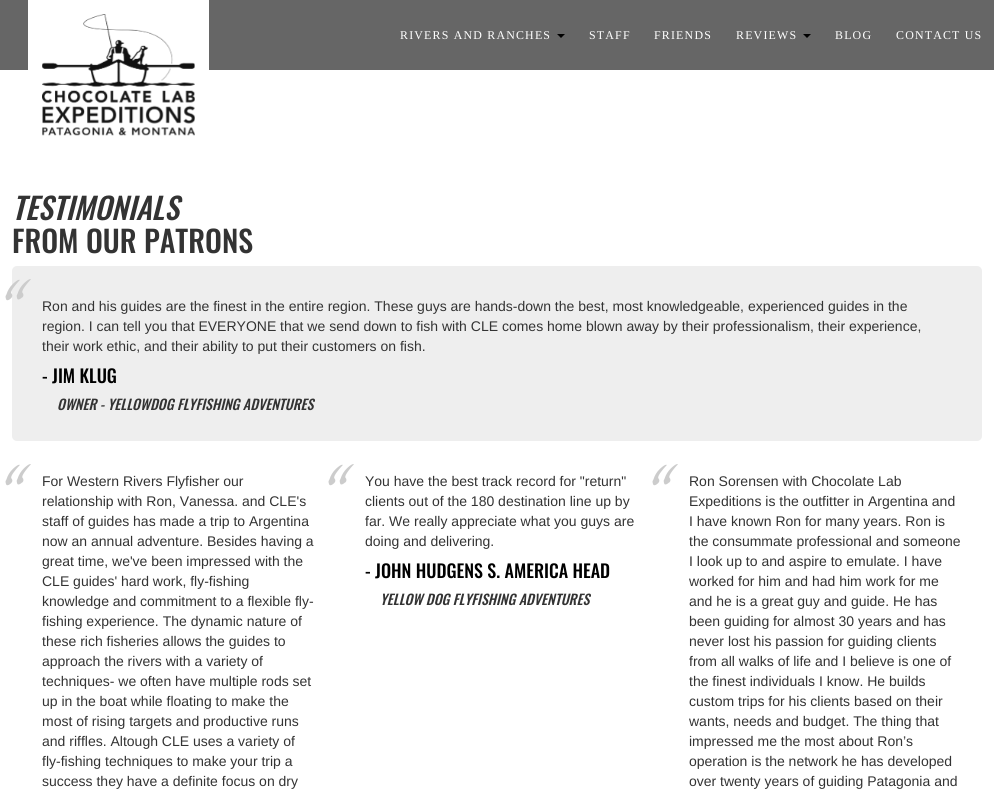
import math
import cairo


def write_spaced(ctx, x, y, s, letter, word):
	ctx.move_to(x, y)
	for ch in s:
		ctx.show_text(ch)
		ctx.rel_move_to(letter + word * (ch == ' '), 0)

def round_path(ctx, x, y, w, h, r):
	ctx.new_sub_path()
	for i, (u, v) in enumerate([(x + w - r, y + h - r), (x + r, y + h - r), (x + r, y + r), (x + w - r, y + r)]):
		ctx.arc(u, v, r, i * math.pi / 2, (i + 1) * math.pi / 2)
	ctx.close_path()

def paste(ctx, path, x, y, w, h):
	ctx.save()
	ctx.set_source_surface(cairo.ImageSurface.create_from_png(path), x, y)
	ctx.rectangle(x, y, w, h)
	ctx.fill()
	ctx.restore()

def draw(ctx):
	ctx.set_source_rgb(1, 1, 1)
	ctx.paint()
	ctx.set_source_rgb(0.4, 0.4, 0.4)
	ctx.rectangle(0, 0, 994, 70)
	ctx.fill()
	ctx.set_source_rgb(1, 1, 1)
	ctx.new_path()
	ctx.move_to(28, 0)
	ctx.line_to(209, 0)
	ctx.line_to(209, 139)
	ctx.curve_to(209, 144.5, 204.5, 149, 199, 149)
	ctx.line_to(38, 149)
	ctx.curve_to(32.5, 149, 28, 144.5, 28, 139)
	ctx.close_path()
	ctx.fill()
	paste(ctx, 'media/1.png', 42, 14, 153, 122)
	ctx.select_font_face('Liberation Serif')
	ctx.set_font_size(11.9)
	write_spaced(ctx, 400, 39, 'RIVERS AND RANCHES', 1.2, 0)
	ctx.set_source_rgb(0, 0, 0)
	ctx.new_path()
	ctx.move_to(557, 34)
	ctx.line_to(565, 34)
	ctx.line_to(561, 38)
	ctx.close_path()
	ctx.fill()
	ctx.set_source_rgb(1, 1, 1)
	for x, y, s in [
		(589, 39, 'STAFF'),
		(654, 39, 'FRIENDS'),
		(736, 39, 'REVIEWS'),
	]:
		write_spaced(ctx, x, y, s, 1.2, 0)
	ctx.set_source_rgb(0, 0, 0)
	ctx.new_path()
	ctx.move_to(803, 34)
	ctx.line_to(811, 34)
	ctx.line_to(807, 38)
	ctx.close_path()
	ctx.fill()
	ctx.set_source_rgb(1, 1, 1)
	write_spaced(ctx, 835, 39, 'BLOG', 1.2, 0)
	write_spaced(ctx, 896, 39, 'CONTACT US', 1.2, 0)
	ctx.select_font_face('Oswald Medium', cairo.FONT_SLANT_ITALIC)
	ctx.set_font_size(30)
	ctx.set_source_rgb(0.2, 0.2, 0.2)
	ctx.move_to(12, 220)
	ctx.show_text('TESTIMONIALS')
	ctx.select_font_face('Oswald Medium')
	ctx.move_to(12, 253)
	ctx.show_text('FROM OUR PATRONS')
	ctx.set_source_rgb(0.933, 0.933, 0.933)
	round_path(ctx, 12, 266, 970, 175, 5)
	ctx.fill()
	ctx.select_font_face('Bilbo Swash Caps')
	ctx.set_font_size(84)
	ctx.set_source_rgb(0.8, 0.8, 0.8)
	ctx.move_to(2, 334)
	ctx.show_text('“')
	ctx.select_font_face('Liberation Sans')
	ctx.set_font_size(14)
	ctx.set_source_rgb(0.2, 0.2, 0.2)
	for x, y, s in [
		(42, 311, 'Ron and his guides are the finest in the entire region. These guys are hands-down the best, most knowledgeable, experienced guides in the'),
		(42, 331, 'region. I can tell you that EVERYONE that we send down to fish with CLE comes home blown away by their professionalism, their experience,'),
		(42, 351, 'their work ethic, and their ability to put their customers on fish.'),
	]:
		ctx.move_to(x, y)
		ctx.show_text(s)
	ctx.select_font_face('Oswald Medium')
	ctx.set_font_size(18)
	ctx.set_source_rgb(0, 0, 0)
	ctx.move_to(42, 383)
	ctx.show_text('- JIM KLUG')
	ctx.select_font_face('Oswald Medium', cairo.FONT_SLANT_ITALIC)
	ctx.set_font_size(14)
	ctx.set_source_rgb(0.2, 0.2, 0.2)
	ctx.move_to(57, 410)
	ctx.show_text('OWNER - YELLOWDOG FLYFISHING ADVENTURES')
	ctx.select_font_face('Bilbo Swash Caps')
	ctx.set_font_size(84)
	ctx.set_source_rgb(0.8, 0.8, 0.8)
	ctx.move_to(2, 519)
	ctx.show_text('“')
	ctx.select_font_face('Liberation Sans')
	ctx.set_font_size(14)
	ctx.set_source_rgb(0.2, 0.2, 0.2)
	for x, y, s in [
		(42, 486, 'For Western Rivers Flyfisher our'),
		(42, 506, 'relationship with Ron, Vanessa. and CLE\'s'),
		(42, 526, 'staff of guides has made a trip to Argentina'),
		(42, 546, 'now an annual adventure. Besides having a'),
		(42, 566, 'great time, we\'ve been impressed with the'),
		(42, 586, 'CLE guides\' hard work, fly-fishing'),
		(42, 606, 'knowledge and commitment to a flexible fly-'),
		(42, 626, 'fishing experience. The dynamic nature of'),
		(42, 646, 'these rich fisheries allows the guides to'),
		(42, 666, 'approach the rivers with a variety of'),
		(42, 686, 'techniques- we often have multiple rods set'),
		(42, 706, 'up in the boat while floating to make the'),
		(42, 726, 'most of rising targets and productive runs'),
		(42, 746, 'and riffles. Altough CLE uses a variety of'),
		(42, 766, 'fly-fishing techniques to make your trip a'),
		(42, 786, 'success they have a definite focus on dry'),
	]:
		ctx.move_to(x, y)
		ctx.show_text(s)
	ctx.select_font_face('Bilbo Swash Caps')
	ctx.set_font_size(84)
	ctx.set_source_rgb(0.8, 0.8, 0.8)
	ctx.move_to(325, 519)
	ctx.show_text('“')
	ctx.select_font_face('Liberation Sans')
	ctx.set_font_size(14)
	ctx.set_source_rgb(0.2, 0.2, 0.2)
	for x, y, s in [
		(365, 486, 'You have the best track record for "return"'),
		(365, 506, 'clients out of the 180 destination line up by'),
		(365, 526, 'far. We really appreciate what you guys are'),
		(365, 546, 'doing and delivering.'),
	]:
		ctx.move_to(x, y)
		ctx.show_text(s)
	ctx.select_font_face('Oswald Medium')
	ctx.set_font_size(18)
	ctx.set_source_rgb(0, 0, 0)
	ctx.move_to(365, 578)
	ctx.show_text('- JOHN HUDGENS S. AMERICA HEAD')
	ctx.select_font_face('Oswald Medium', cairo.FONT_SLANT_ITALIC)
	ctx.set_font_size(14)
	ctx.set_source_rgb(0.2, 0.2, 0.2)
	ctx.move_to(380, 605)
	ctx.show_text('YELLOW DOG FLYFISHING ADVENTURES')
	ctx.select_font_face('Bilbo Swash Caps')
	ctx.set_font_size(84)
	ctx.set_source_rgb(0.8, 0.8, 0.8)
	ctx.move_to(649, 519)
	ctx.show_text('“')
	ctx.select_font_face('Liberation Sans')
	ctx.set_font_size(14)
	ctx.set_source_rgb(0.2, 0.2, 0.2)
	for x, y, s in [
		(689, 486, 'Ron Sorensen with Chocolate Lab'),
		(689, 506, 'Expeditions is the outfitter in Argentina and'),
		(689, 526, 'I have known Ron for many years. Ron is'),
		(689, 546, 'the consummate professional and someone'),
		(689, 566, 'I look up to and aspire to emulate. I have'),
		(689, 586, 'worked for him and had him work for me'),
		(689, 606, 'and he is a great guy and guide. He has'),
		(689, 626, 'been guiding for almost 30 years and has'),
		(689, 646, 'never lost his passion for guiding clients'),
		(689, 666, 'from all walks of life and I believe is one of'),
		(689, 686, 'the finest individuals I know. He builds'),
		(689, 706, 'custom trips for his clients based on their'),
		(689, 726, 'wants, needs and budget. The thing that'),
		(689, 746, 'impressed me the most about Ron’s'),
		(689, 766, 'operation is the network he has developed'),
		(689, 786, 'over twenty years of guiding Patagonia and'),
	]:
		ctx.move_to(x, y)
		ctx.show_text(s)


surface = cairo.ImageSurface(cairo.FORMAT_RGB24, 994, 796)
ctx = cairo.Context(surface)
options = cairo.FontOptions()
options.set_hint_metrics(cairo.HINT_METRICS_OFF)
options.set_hint_style(cairo.HINT_STYLE_NONE)
ctx.set_font_options(options)
ctx.set_miter_limit(4)
draw(ctx)
surface.write_to_png('image.png')
